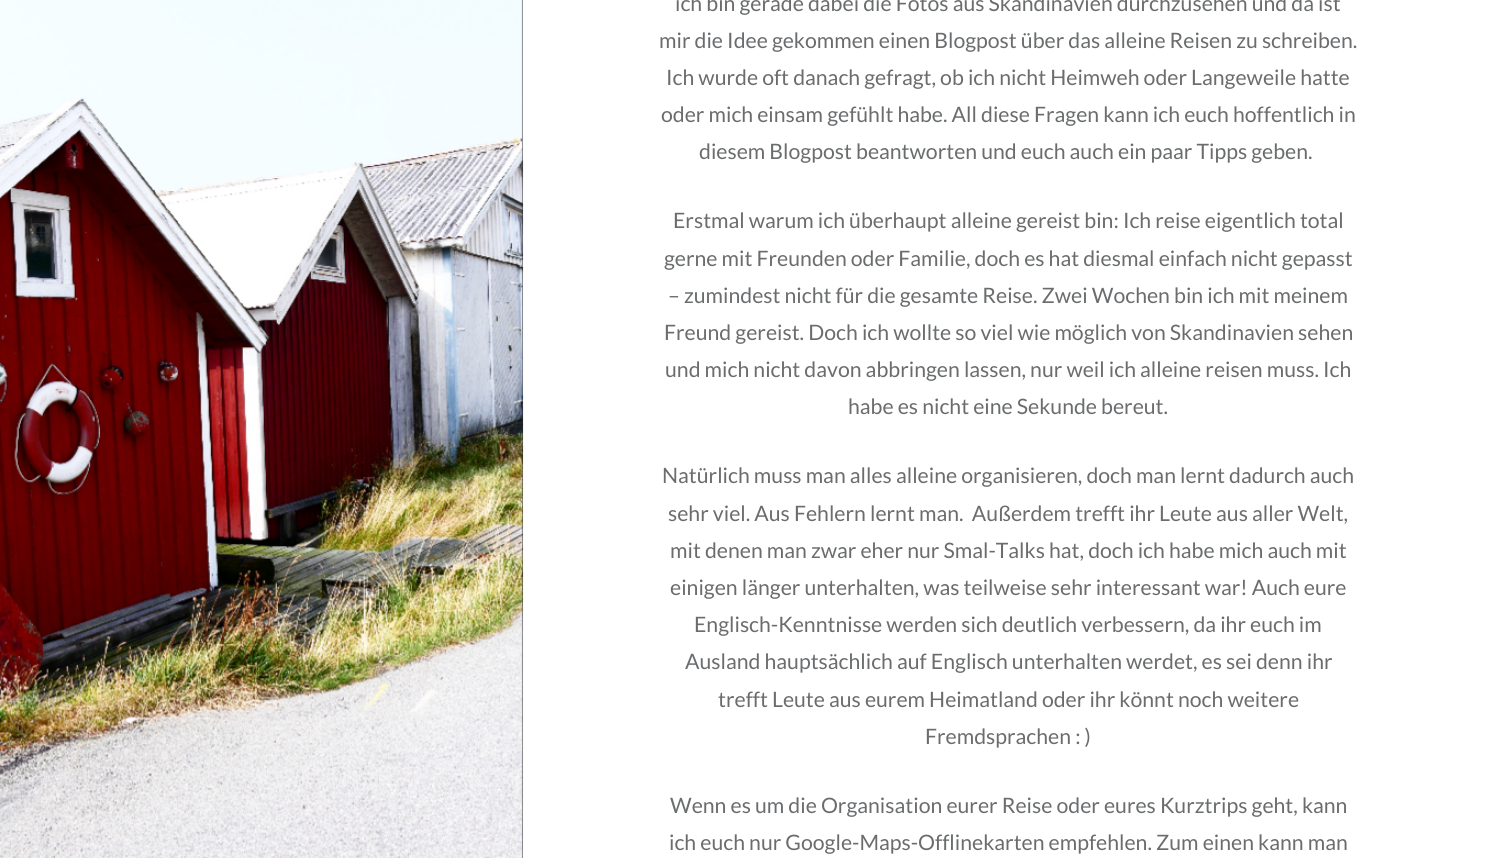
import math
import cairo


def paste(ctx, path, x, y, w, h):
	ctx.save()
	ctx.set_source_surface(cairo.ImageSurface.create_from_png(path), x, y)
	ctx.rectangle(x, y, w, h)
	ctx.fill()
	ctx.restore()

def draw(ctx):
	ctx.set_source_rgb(0.141, 0.149, 0.161)
	ctx.paint()
	ctx.set_source_rgb(1, 1, 1)
	ctx.rectangle(523, 0, 970, 858)
	ctx.fill()
	paste(ctx, 'media/1.png', 0, 0, 524, 858)
	ctx.select_font_face('Lato')
	ctx.set_font_size(21.25)
	ctx.set_source_rgb(0.416, 0.424, 0.431)
	for x, y, s in [
		(675, 11, 'ich bin gerade dabei die Fotos aus Skandinavien durchzusehen und da ist'),
		(659, 48, 'mir die Idee gekommen einen Blogpost über das alleine Reisen zu schreiben.'),
		(666, 85, 'Ich wurde oft danach gefragt, ob ich nicht Heimweh oder Langeweile hatte'),
		(661, 122, 'oder mich einsam gefühlt habe. All diese Fragen kann ich euch hoffentlich in'),
		(699, 159, 'diesem Blogpost beantworten und euch auch ein paar Tipps geben.'),
		(673, 228, 'Erstmal warum ich überhaupt alleine gereist bin: Ich reise eigentlich total'),
		(664, 266, 'gerne mit Freunden oder Familie, doch es hat diesmal einfach nicht gepasst'),
		(668, 303, '– zumindest nicht für die gesamte Reise. Zwei Wochen bin ich mit meinem'),
		(664, 340, 'Freund gereist. Doch ich wollte so viel wie möglich von Skandinavien sehen'),
		(665, 377, 'und mich nicht davon abbringen lassen, nur weil ich alleine reisen muss. Ich'),
		(848, 414, 'habe es nicht eine Sekunde bereut.'),
		(662, 483, 'Natürlich muss man alles alleine organisieren, doch man lernt dadurch auch'),
		(668, 521, 'sehr viel. Aus Fehlern lernt man.  Außerdem trefft ihr Leute aus aller Welt,'),
		(670, 558, 'mit denen man zwar eher nur Smal-Talks hat, doch ich habe mich auch mit'),
		(670, 595, 'einigen länger unterhalten, was teilweise sehr interessant war! Auch eure'),
		(694, 632, 'Englisch-Kenntnisse werden sich deutlich verbessern, da ihr euch im'),
		(685, 669, 'Ausland hauptsächlich auf Englisch unterhalten werdet, es sei denn ihr'),
		(718, 707, 'trefft Leute aus eurem Heimatland oder ihr könnt noch weitere'),
		(925, 744, 'Fremdsprachen : )'),
		(670, 813, 'Wenn es um die Organisation eurer Reise oder eures Kurztrips geht, kann'),
		(669, 850, 'ich euch nur Google-Maps-Offlinekarten empfehlen. Zum einen kann man'),
	]:
		ctx.move_to(x, y)
		ctx.show_text(s)


surface = cairo.ImageSurface(cairo.FORMAT_RGB24, 1493, 858)
ctx = cairo.Context(surface)
options = cairo.FontOptions()
options.set_hint_metrics(cairo.HINT_METRICS_OFF)
options.set_hint_style(cairo.HINT_STYLE_NONE)
ctx.set_font_options(options)
ctx.set_miter_limit(4)
draw(ctx)
surface.write_to_png('image.png')
